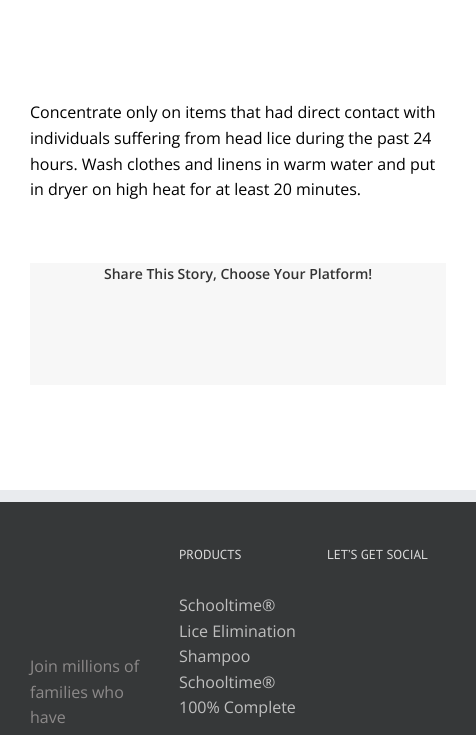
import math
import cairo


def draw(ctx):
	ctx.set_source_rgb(1, 1, 1)
	ctx.paint()
	ctx.select_font_face('Open Sans')
	ctx.set_font_size(16)
	ctx.set_source_rgb(0, 0, 0)
	for x, y, s in [
		(30, 118, 'Concentrate only on items that had direct contact with'),
		(30, 144, 'individuals suffering from head lice during the past 24'),
		(30, 170, 'hours. Wash clothes and linens in warm water and put'),
		(30, 195, 'in dryer on high heat for at least 20 minutes.'),
	]:
		ctx.move_to(x, y)
		ctx.show_text(s)
	ctx.set_source_rgb(0.965, 0.965, 0.965)
	ctx.rectangle(30, 263, 416, 122)
	ctx.fill()
	ctx.select_font_face('Open Sans SemiBold')
	ctx.set_font_size(14)
	ctx.set_source_rgb(0.2, 0.2, 0.2)
	ctx.move_to(104, 279)
	ctx.show_text('Share This Story, Choose Your Platform!')
	ctx.set_source_rgb(0.212, 0.22, 0.224)
	ctx.rectangle(0, 502, 476, 233)
	ctx.fill()
	ctx.set_source_rgb(0.914, 0.918, 0.933)
	ctx.rectangle(0, 490, 476, 12)
	ctx.fill()
	ctx.select_font_face('PT Sans')
	ctx.set_font_size(13)
	ctx.set_source_rgb(0.867, 0.867, 0.867)
	ctx.move_to(179, 559)
	ctx.show_text('PRODUCTS')
	ctx.select_font_face('Open Sans')
	ctx.set_font_size(16)
	ctx.set_source_rgb(0.749, 0.749, 0.749)
	for x, y, s in [
		(179, 611, 'Schooltime®'),
		(179, 637, 'Lice Elimination'),
		(179, 662, 'Shampoo'),
		(179, 688, 'Schooltime®'),
		(179, 713, '100% Complete'),
	]:
		ctx.move_to(x, y)
		ctx.show_text(s)
	ctx.select_font_face('PT Sans')
	ctx.set_font_size(13)
	ctx.set_source_rgb(0.867, 0.867, 0.867)
	ctx.move_to(327, 559)
	ctx.show_text('LET’S GET SOCIAL')
	ctx.select_font_face('Open Sans')
	ctx.set_font_size(16)
	ctx.set_source_rgb(0.549, 0.537, 0.537)
	for x, y, s in [
		(30, 672, 'Join millions of'),
		(30, 698, 'families who'),
		(30, 723, 'have'),
	]:
		ctx.move_to(x, y)
		ctx.show_text(s)


surface = cairo.ImageSurface(cairo.FORMAT_RGB24, 476, 735)
ctx = cairo.Context(surface)
options = cairo.FontOptions()
options.set_hint_metrics(cairo.HINT_METRICS_OFF)
options.set_hint_style(cairo.HINT_STYLE_NONE)
ctx.set_font_options(options)
ctx.set_miter_limit(4)
draw(ctx)
surface.write_to_png('image.png')
